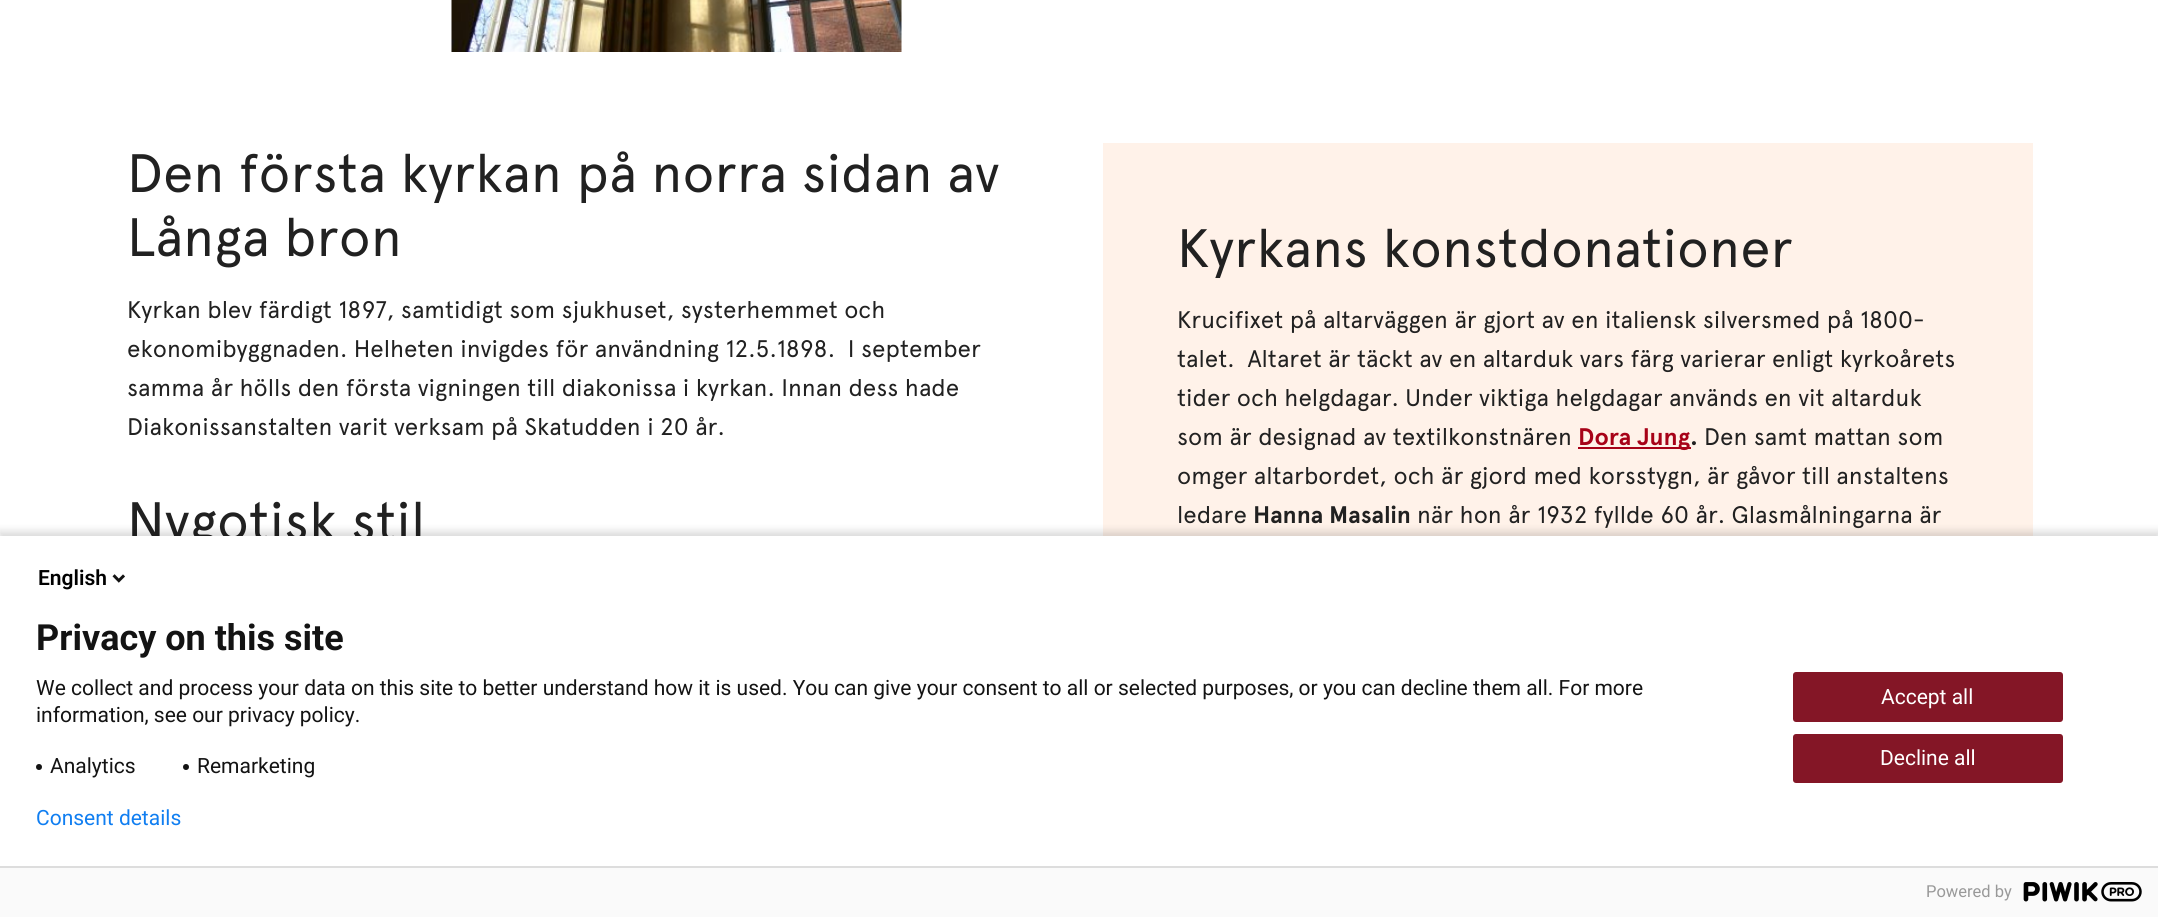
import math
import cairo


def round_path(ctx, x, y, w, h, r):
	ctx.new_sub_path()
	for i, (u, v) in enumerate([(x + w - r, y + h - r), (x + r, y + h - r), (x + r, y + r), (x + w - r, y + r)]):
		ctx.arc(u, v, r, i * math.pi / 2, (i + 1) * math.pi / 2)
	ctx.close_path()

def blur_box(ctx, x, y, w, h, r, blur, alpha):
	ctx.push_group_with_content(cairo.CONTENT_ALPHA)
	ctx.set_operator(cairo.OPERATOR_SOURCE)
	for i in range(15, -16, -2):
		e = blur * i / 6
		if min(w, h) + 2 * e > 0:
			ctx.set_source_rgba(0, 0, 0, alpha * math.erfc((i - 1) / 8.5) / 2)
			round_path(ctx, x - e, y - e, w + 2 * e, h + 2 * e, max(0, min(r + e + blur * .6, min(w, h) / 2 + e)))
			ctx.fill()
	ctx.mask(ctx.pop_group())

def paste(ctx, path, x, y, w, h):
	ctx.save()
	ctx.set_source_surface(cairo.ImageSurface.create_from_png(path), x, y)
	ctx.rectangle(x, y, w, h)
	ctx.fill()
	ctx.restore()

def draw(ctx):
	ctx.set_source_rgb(1, 1, 1)
	ctx.paint()
	paste(ctx, 'media/1.png', 451, 0, 451, 52)
	ctx.select_font_face('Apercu')
	ctx.set_font_size(54)
	ctx.set_source_rgb(0.129, 0.129, 0.129)
	ctx.move_to(127, 192)
	ctx.show_text('Den första kyrkan på norra sidan av')
	ctx.move_to(127, 256)
	ctx.show_text('Långa bron')
	ctx.set_font_size(24)
	for x, y, s in [
		(127, 318, 'Kyrkan blev färdigt 1897, samtidigt som sjukhuset, systerhemmet och'),
		(127, 357, 'ekonomibyggnaden. Helheten invigdes för användning 12.5.1898.  I september'),
		(127, 396, 'samma år hölls den första vigningen till diakonissa i kyrkan. Innan dess hade'),
		(127, 435, 'Diakonissanstalten varit verksam på Skatudden i 20 år.'),
	]:
		ctx.move_to(x, y)
		ctx.show_text(s)
	ctx.set_font_size(54)
	ctx.move_to(127, 540)
	ctx.show_text('Nygotisk stil')
	ctx.set_source_rgb(1, 0.949, 0.914)
	ctx.rectangle(1103, 143, 930, 393)
	ctx.fill()
	ctx.set_source_rgb(0.129, 0.129, 0.129)
	ctx.move_to(1177, 267)
	ctx.show_text('Kyrkans konstdonationer')
	ctx.set_font_size(24)
	for x, y, s in [
		(1177, 328, 'Krucifixet på altarväggen är gjort av en italiensk silversmed på 1800-'),
		(1177, 367, 'talet.  Altaret är täckt av en altarduk vars färg varierar enligt kyrkoårets'),
		(1177, 406, 'tider och helgdagar. Under viktiga helgdagar används en vit altarduk'),
		(1177, 445, 'som är designad av textilkonstnären'),
	]:
		ctx.move_to(x, y)
		ctx.show_text(s)
	ctx.set_source_rgb(0.655, 0.008, 0.094)
	ctx.rectangle(1578, 447, 113, 2)
	ctx.fill()
	ctx.select_font_face('Apercu', cairo.FONT_SLANT_NORMAL, cairo.FONT_WEIGHT_BOLD)
	ctx.move_to(1578, 445)
	ctx.show_text('Dora Jung')
	ctx.set_source_rgb(0.129, 0.129, 0.129)
	ctx.move_to(1690, 445)
	ctx.show_text('.')
	ctx.select_font_face('Apercu')
	for x, y, s in [
		(1704, 445, 'Den samt mattan som'),
		(1177, 484, 'omger altarbordet, och är gjord med korsstygn, är gåvor till anstaltens'),
		(1177, 523, 'ledare'),
	]:
		ctx.move_to(x, y)
		ctx.show_text(s)
	ctx.select_font_face('Apercu', cairo.FONT_SLANT_NORMAL, cairo.FONT_WEIGHT_BOLD)
	ctx.move_to(1253, 523)
	ctx.show_text('Hanna Masalin')
	ctx.select_font_face('Apercu')
	ctx.move_to(1417, 523)
	ctx.show_text('när hon år 1932 fyllde 60 år. Glasmålningarna är')
	ctx.set_source_rgb(0, 0, 0)
	blur_box(ctx, -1, 531, 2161, 386, 0, 4, 0.14)
	ctx.set_source_rgb(1, 1, 1)
	ctx.rectangle(0, 536, 2158, 330)
	ctx.fill()
	ctx.select_font_face('Roboto SemiBold')
	ctx.set_font_size(21)
	ctx.set_source_rgb(0, 0, 0)
	ctx.move_to(38, 585)
	ctx.show_text('English')
	paste(ctx, 'media/2.png', 112, 574, 13, 9)
	ctx.select_font_face('Roboto', cairo.FONT_SLANT_NORMAL, cairo.FONT_WEIGHT_BOLD)
	ctx.set_font_size(36)
	ctx.set_source_rgb(0.075, 0.075, 0.075)
	ctx.move_to(36, 650)
	ctx.show_text('Privacy on this site')
	ctx.select_font_face('Roboto')
	ctx.set_font_size(21)
	ctx.move_to(36, 695)
	ctx.show_text('We collect and process your data on this site to better understand how it is used. You can give your consent to all or selected purposes, or you can decline them all. For more')
	ctx.move_to(36, 722)
	ctx.show_text('information, see our privacy policy.')
	ctx.new_path()
	ctx.arc(39, 767, 3, 0, 2 * math.pi)
	ctx.fill()
	ctx.move_to(50, 773)
	ctx.show_text('Analytics')
	ctx.new_path()
	ctx.arc(186, 767, 3, 0, 2 * math.pi)
	ctx.fill()
	ctx.move_to(197, 773)
	ctx.show_text('Remarketing')
	ctx.set_source_rgb(0.518, 0.086, 0.149)
	round_path(ctx, 1794, 673, 268, 48, 2)
	ctx.fill_preserve()
	ctx.stroke()
	ctx.set_source_rgb(1, 1, 1)
	ctx.move_to(1881, 704)
	ctx.show_text('Accept all')
	ctx.set_source_rgb(0.518, 0.086, 0.149)
	round_path(ctx, 1794, 735, 268, 47, 2)
	ctx.fill_preserve()
	ctx.stroke()
	ctx.set_source_rgb(1, 1, 1)
	ctx.move_to(1880, 765)
	ctx.show_text('Decline all')
	ctx.set_source_rgb(0.063, 0.494, 0.945)
	ctx.move_to(36, 825)
	ctx.show_text('Consent details')
	ctx.set_source_rgb(0.98, 0.98, 0.98)
	ctx.rectangle(0, 868, 2158, 49)
	ctx.fill()
	ctx.set_source_rgb(0.867, 0.867, 0.867)
	ctx.rectangle(0, 866, 2158, 2)
	ctx.fill()
	ctx.set_font_size(16.5)
	ctx.set_source_rgb(0.6, 0.6, 0.6)
	ctx.move_to(1926, 897)
	ctx.show_text('Powered by')
	paste(ctx, 'media/3.png', 2023, 882, 119, 20)


surface = cairo.ImageSurface(cairo.FORMAT_RGB24, 2158, 917)
ctx = cairo.Context(surface)
options = cairo.FontOptions()
options.set_hint_metrics(cairo.HINT_METRICS_OFF)
options.set_hint_style(cairo.HINT_STYLE_NONE)
ctx.set_font_options(options)
ctx.set_miter_limit(4)
draw(ctx)
surface.write_to_png('image.png')
